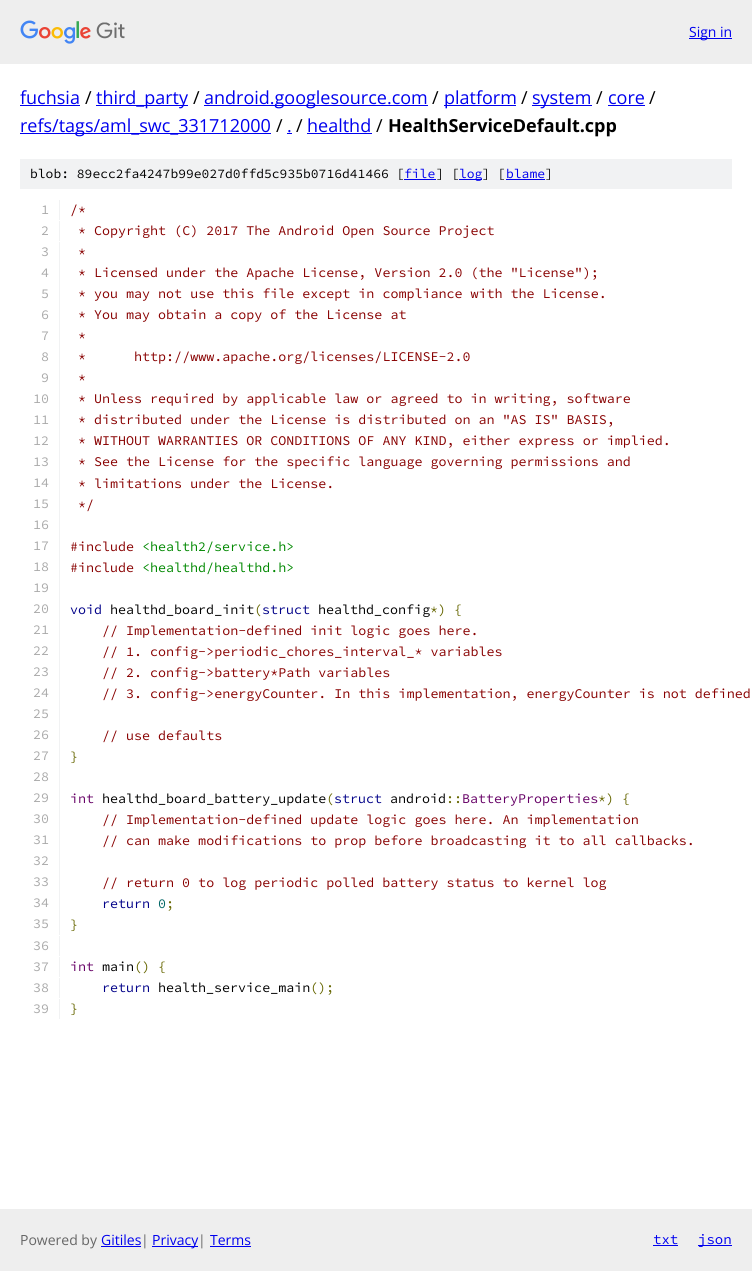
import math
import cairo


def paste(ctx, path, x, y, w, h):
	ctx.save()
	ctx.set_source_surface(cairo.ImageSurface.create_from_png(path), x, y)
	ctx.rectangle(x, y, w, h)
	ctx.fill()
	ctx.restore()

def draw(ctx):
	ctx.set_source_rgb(1, 1, 1)
	ctx.paint()
	ctx.set_source_rgb(0.933, 0.933, 0.933)
	ctx.rectangle(0, 0, 752, 64)
	ctx.fill()
	paste(ctx, 'media/1.png', 20, 20, 105, 24)
	ctx.set_source_rgb(0, 0, 0.933)
	ctx.rectangle(689, 38, 43, 1)
	ctx.fill()
	ctx.select_font_face('Open Sans')
	ctx.set_font_size(14)
	ctx.move_to(689, 37)
	ctx.show_text('Sign in')
	ctx.set_font_size(18)
	ctx.move_to(20, 104)
	ctx.show_text('fuchsia')
	ctx.rectangle(20, 105, 60, 1)
	ctx.fill()
	ctx.set_source_rgb(0, 0, 0)
	ctx.move_to(85, 104)
	ctx.show_text('/')
	ctx.set_source_rgb(0, 0, 0.933)
	ctx.rectangle(96, 105, 92, 1)
	ctx.fill()
	ctx.move_to(96, 104)
	ctx.show_text('third_party')
	ctx.set_source_rgb(0, 0, 0)
	ctx.move_to(193, 104)
	ctx.show_text('/')
	ctx.set_source_rgb(0, 0, 0.933)
	ctx.rectangle(204, 105, 224, 1)
	ctx.fill()
	ctx.move_to(204, 104)
	ctx.show_text('android.googlesource.com')
	ctx.set_source_rgb(0, 0, 0)
	ctx.move_to(432, 104)
	ctx.show_text('/')
	ctx.set_source_rgb(0, 0, 0.933)
	ctx.rectangle(444, 105, 72, 1)
	ctx.fill()
	ctx.move_to(444, 104)
	ctx.show_text('platform')
	ctx.set_source_rgb(0, 0, 0)
	ctx.move_to(521, 104)
	ctx.show_text('/')
	ctx.set_source_rgb(0, 0, 0.933)
	ctx.rectangle(532, 105, 60, 1)
	ctx.fill()
	ctx.move_to(532, 104)
	ctx.show_text('system')
	ctx.set_source_rgb(0, 0, 0)
	ctx.move_to(596, 104)
	ctx.show_text('/')
	ctx.set_source_rgb(0, 0, 0.933)
	ctx.move_to(608, 104)
	ctx.show_text('core')
	ctx.rectangle(608, 105, 37, 1)
	ctx.fill()
	ctx.set_source_rgb(0, 0, 0)
	ctx.move_to(649, 104)
	ctx.show_text('/')
	ctx.set_source_rgb(0, 0, 0.933)
	ctx.rectangle(20, 133, 251, 1)
	ctx.fill()
	ctx.move_to(20, 132)
	ctx.show_text('refs/tags/aml_swc_331712000')
	ctx.set_source_rgb(0, 0, 0)
	ctx.move_to(276, 132)
	ctx.show_text('/')
	ctx.set_source_rgb(0, 0, 0.933)
	ctx.move_to(287, 132)
	ctx.show_text('.')
	ctx.rectangle(287, 133, 5, 1)
	ctx.fill()
	ctx.set_source_rgb(0, 0, 0)
	ctx.move_to(296, 132)
	ctx.show_text('/')
	ctx.set_source_rgb(0, 0, 0.933)
	ctx.move_to(307, 132)
	ctx.show_text('healthd')
	ctx.rectangle(307, 133, 65, 1)
	ctx.fill()
	ctx.set_source_rgb(0, 0, 0)
	ctx.move_to(376, 132)
	ctx.show_text('/')
	ctx.select_font_face('Open Sans', cairo.FONT_SLANT_NORMAL, cairo.FONT_WEIGHT_BOLD)
	ctx.move_to(388, 132)
	ctx.show_text('HealthServiceDefault.cpp')
	ctx.set_source_rgb(0.945, 0.949, 0.953)
	ctx.rectangle(20, 159, 712, 30)
	ctx.fill()
	ctx.select_font_face('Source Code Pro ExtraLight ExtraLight')
	ctx.set_font_size(13)
	ctx.set_source_rgb(0, 0, 0)
	ctx.move_to(30, 178)
	ctx.show_text('blob: 89ecc2fa4247b99e027d0ffd5c935b0716d41466 [')
	ctx.set_source_rgb(0, 0, 0.933)
	ctx.move_to(404, 178)
	ctx.show_text('file')
	ctx.rectangle(404, 179, 32, 1)
	ctx.fill()
	ctx.set_source_rgb(0, 0, 0)
	ctx.move_to(436, 178)
	ctx.show_text('] [')
	ctx.set_source_rgb(0, 0, 0.933)
	ctx.rectangle(459, 179, 23, 1)
	ctx.fill()
	ctx.move_to(459, 178)
	ctx.show_text('log')
	ctx.set_source_rgb(0, 0, 0)
	ctx.move_to(482, 178)
	ctx.show_text('] [')
	ctx.set_source_rgb(0, 0, 0.933)
	ctx.move_to(506, 178)
	ctx.show_text('blame')
	ctx.rectangle(506, 179, 39, 1)
	ctx.fill()
	ctx.set_source_rgb(0, 0, 0)
	ctx.move_to(545, 178)
	ctx.show_text(']')
	ctx.set_source_rgb(0.945, 0.949, 0.953)
	ctx.rectangle(59, 200, 1, 20)
	ctx.fill()
	ctx.set_font_size(13.35)
	ctx.set_source_rgb(0.667, 0.667, 0.667)
	ctx.move_to(41, 214)
	ctx.show_text('1')
	ctx.set_source_rgb(0.533, 0, 0)
	ctx.move_to(70, 214)
	ctx.show_text('/*')
	ctx.set_source_rgb(0.945, 0.949, 0.953)
	ctx.rectangle(59, 221, 1, 20)
	ctx.fill()
	ctx.set_source_rgb(0.667, 0.667, 0.667)
	ctx.move_to(41, 235)
	ctx.show_text('2')
	ctx.set_source_rgb(0.533, 0, 0)
	ctx.move_to(78, 235)
	ctx.show_text('* Copyright (C) 2017 The Android Open Source Project')
	ctx.set_source_rgb(0.945, 0.949, 0.953)
	ctx.rectangle(59, 242, 1, 693)
	ctx.fill()
	ctx.set_source_rgb(0.667, 0.667, 0.667)
	ctx.move_to(41, 256)
	ctx.show_text('3')
	ctx.set_source_rgb(0.533, 0, 0)
	ctx.move_to(78, 256)
	ctx.show_text('*')
	ctx.set_source_rgb(0.667, 0.667, 0.667)
	ctx.move_to(41, 277)
	ctx.show_text('4')
	ctx.set_source_rgb(0.533, 0, 0)
	ctx.move_to(78, 277)
	ctx.show_text('* Licensed under the Apache License, Version 2.0 (the "License");')
	ctx.set_source_rgb(0.667, 0.667, 0.667)
	ctx.move_to(41, 298)
	ctx.show_text('5')
	ctx.set_source_rgb(0.533, 0, 0)
	ctx.move_to(78, 298)
	ctx.show_text('* you may not use this file except in compliance with the License.')
	ctx.set_source_rgb(0.667, 0.667, 0.667)
	ctx.move_to(41, 319)
	ctx.show_text('6')
	ctx.set_source_rgb(0.533, 0, 0)
	ctx.move_to(78, 319)
	ctx.show_text('* You may obtain a copy of the License at')
	ctx.set_source_rgb(0.667, 0.667, 0.667)
	ctx.move_to(41, 340)
	ctx.show_text('7')
	ctx.set_source_rgb(0.533, 0, 0)
	ctx.move_to(78, 340)
	ctx.show_text('*')
	ctx.set_source_rgb(0.667, 0.667, 0.667)
	ctx.move_to(41, 361)
	ctx.show_text('8')
	ctx.set_source_rgb(0.533, 0, 0)
	ctx.move_to(78, 361)
	ctx.show_text('*      http://www.apache.org/licenses/LICENSE-2.0')
	ctx.set_source_rgb(0.667, 0.667, 0.667)
	ctx.move_to(41, 382)
	ctx.show_text('9')
	ctx.set_source_rgb(0.533, 0, 0)
	ctx.move_to(78, 382)
	ctx.show_text('*')
	ctx.set_source_rgb(0.667, 0.667, 0.667)
	ctx.move_to(33, 403)
	ctx.show_text('10')
	ctx.set_source_rgb(0.533, 0, 0)
	ctx.move_to(78, 403)
	ctx.show_text('* Unless required by applicable law or agreed to in writing, software')
	ctx.set_source_rgb(0.667, 0.667, 0.667)
	ctx.move_to(33, 424)
	ctx.show_text('11')
	ctx.set_source_rgb(0.533, 0, 0)
	ctx.move_to(78, 424)
	ctx.show_text('* distributed under the License is distributed on an "AS IS" BASIS,')
	ctx.set_source_rgb(0.667, 0.667, 0.667)
	ctx.move_to(33, 445)
	ctx.show_text('12')
	ctx.set_source_rgb(0.533, 0, 0)
	ctx.move_to(78, 445)
	ctx.show_text('* WITHOUT WARRANTIES OR CONDITIONS OF ANY KIND, either express or implied.')
	ctx.set_source_rgb(0.667, 0.667, 0.667)
	ctx.move_to(33, 466)
	ctx.show_text('13')
	ctx.set_source_rgb(0.533, 0, 0)
	ctx.move_to(78, 466)
	ctx.show_text('* See the License for the specific language governing permissions and')
	ctx.set_source_rgb(0.667, 0.667, 0.667)
	ctx.move_to(33, 487)
	ctx.show_text('14')
	ctx.set_source_rgb(0.533, 0, 0)
	ctx.move_to(78, 488)
	ctx.show_text('* limitations under the License.')
	ctx.set_source_rgb(0.667, 0.667, 0.667)
	ctx.move_to(33, 508)
	ctx.show_text('15')
	ctx.set_source_rgb(0.533, 0, 0)
	ctx.move_to(78, 509)
	ctx.show_text('*/')
	ctx.set_source_rgb(0.667, 0.667, 0.667)
	ctx.move_to(33, 529)
	ctx.show_text('16')
	ctx.move_to(33, 550)
	ctx.show_text('17')
	ctx.set_source_rgb(0.533, 0, 0)
	ctx.move_to(70, 551)
	ctx.show_text('#include')
	ctx.set_source_rgb(0, 0.533, 0)
	ctx.move_to(142, 551)
	ctx.show_text('<health2/service.h>')
	ctx.set_source_rgb(0.667, 0.667, 0.667)
	ctx.move_to(33, 571)
	ctx.show_text('18')
	ctx.set_source_rgb(0.533, 0, 0)
	ctx.move_to(70, 572)
	ctx.show_text('#include')
	ctx.set_source_rgb(0, 0.533, 0)
	ctx.move_to(142, 572)
	ctx.show_text('<healthd/healthd.h>')
	ctx.set_source_rgb(0.667, 0.667, 0.667)
	ctx.move_to(33, 592)
	ctx.show_text('19')
	ctx.move_to(33, 613)
	ctx.show_text('20')
	ctx.set_source_rgb(0, 0, 0.533)
	ctx.move_to(70, 614)
	ctx.show_text('void')
	ctx.set_source_rgb(0, 0, 0)
	ctx.move_to(110, 614)
	ctx.show_text('healthd_board_init')
	ctx.set_source_rgb(0.4, 0.4, 0)
	ctx.move_to(254, 614)
	ctx.show_text('(')
	ctx.set_source_rgb(0, 0, 0.533)
	ctx.move_to(262, 614)
	ctx.show_text('struct')
	ctx.set_source_rgb(0, 0, 0)
	ctx.move_to(318, 614)
	ctx.show_text('healthd_config')
	ctx.set_source_rgb(0.4, 0.4, 0)
	ctx.move_to(430, 614)
	ctx.show_text('*) {')
	ctx.set_source_rgb(0.667, 0.667, 0.667)
	ctx.move_to(33, 634)
	ctx.show_text('21')
	ctx.set_source_rgb(0.533, 0, 0)
	ctx.move_to(102, 635)
	ctx.show_text('// Implementation-defined init logic goes here.')
	ctx.set_source_rgb(0.667, 0.667, 0.667)
	ctx.move_to(33, 655)
	ctx.show_text('22')
	ctx.set_source_rgb(0.533, 0, 0)
	ctx.move_to(102, 656)
	ctx.show_text('// 1. config->periodic_chores_interval_* variables')
	ctx.set_source_rgb(0.667, 0.667, 0.667)
	ctx.move_to(33, 676)
	ctx.show_text('23')
	ctx.set_source_rgb(0.533, 0, 0)
	ctx.move_to(102, 677)
	ctx.show_text('// 2. config->battery*Path variables')
	ctx.set_source_rgb(0.667, 0.667, 0.667)
	ctx.move_to(33, 697)
	ctx.show_text('24')
	ctx.set_source_rgb(0.533, 0, 0)
	ctx.move_to(102, 698)
	ctx.show_text('// 3. config->energyCounter. In this implementation, energyCounter is not defined')
	ctx.set_source_rgb(0.667, 0.667, 0.667)
	ctx.move_to(33, 718)
	ctx.show_text('25')
	ctx.move_to(33, 739)
	ctx.show_text('26')
	ctx.set_source_rgb(0.533, 0, 0)
	ctx.move_to(102, 740)
	ctx.show_text('// use defaults')
	ctx.set_source_rgb(0.667, 0.667, 0.667)
	ctx.move_to(33, 760)
	ctx.show_text('27')
	ctx.set_source_rgb(0.4, 0.4, 0)
	ctx.move_to(70, 761)
	ctx.show_text('}')
	ctx.set_source_rgb(0.667, 0.667, 0.667)
	ctx.move_to(33, 781)
	ctx.show_text('28')
	ctx.move_to(33, 802)
	ctx.show_text('29')
	ctx.set_source_rgb(0.4, 0, 0.4)
	ctx.move_to(70, 803)
	ctx.show_text('int')
	ctx.set_source_rgb(0, 0, 0)
	ctx.move_to(102, 803)
	ctx.show_text('healthd_board_battery_update')
	ctx.set_source_rgb(0.4, 0.4, 0)
	ctx.move_to(326, 803)
	ctx.show_text('(')
	ctx.set_source_rgb(0, 0, 0.533)
	ctx.move_to(334, 803)
	ctx.show_text('struct')
	ctx.set_source_rgb(0, 0, 0)
	ctx.move_to(390, 803)
	ctx.show_text('android')
	ctx.set_source_rgb(0.4, 0.4, 0)
	ctx.move_to(446, 803)
	ctx.show_text('::')
	ctx.set_source_rgb(0.4, 0, 0.4)
	ctx.move_to(462, 803)
	ctx.show_text('BatteryProperties')
	ctx.set_source_rgb(0.4, 0.4, 0)
	ctx.move_to(598, 803)
	ctx.show_text('*) {')
	ctx.set_source_rgb(0.667, 0.667, 0.667)
	ctx.move_to(33, 823)
	ctx.show_text('30')
	ctx.set_source_rgb(0.533, 0, 0)
	ctx.move_to(102, 824)
	ctx.show_text('// Implementation-defined update logic goes here. An implementation')
	ctx.set_source_rgb(0.667, 0.667, 0.667)
	ctx.move_to(33, 844)
	ctx.show_text('31')
	ctx.set_source_rgb(0.533, 0, 0)
	ctx.move_to(102, 845)
	ctx.show_text('// can make modifications to prop before broadcasting it to all callbacks.')
	ctx.set_source_rgb(0.667, 0.667, 0.667)
	ctx.move_to(33, 865)
	ctx.show_text('32')
	ctx.move_to(33, 886)
	ctx.show_text('33')
	ctx.set_source_rgb(0.533, 0, 0)
	ctx.move_to(102, 887)
	ctx.show_text('// return 0 to log periodic polled battery status to kernel log')
	ctx.set_source_rgb(0.667, 0.667, 0.667)
	ctx.move_to(33, 907)
	ctx.show_text('34')
	ctx.set_source_rgb(0, 0, 0.533)
	ctx.move_to(102, 908)
	ctx.show_text('return')
	ctx.set_source_rgb(0, 0.4, 0.4)
	ctx.move_to(158, 908)
	ctx.show_text('0')
	ctx.set_source_rgb(0.4, 0.4, 0)
	ctx.move_to(166, 908)
	ctx.show_text(';')
	ctx.set_source_rgb(0.667, 0.667, 0.667)
	ctx.move_to(33, 928)
	ctx.show_text('35')
	ctx.set_source_rgb(0.4, 0.4, 0)
	ctx.move_to(70, 929)
	ctx.show_text('}')
	ctx.set_source_rgb(0.945, 0.949, 0.953)
	ctx.rectangle(59, 936, 1, 20)
	ctx.fill()
	ctx.set_source_rgb(0.667, 0.667, 0.667)
	ctx.move_to(33, 950)
	ctx.show_text('36')
	ctx.set_source_rgb(0.945, 0.949, 0.953)
	ctx.rectangle(59, 957, 1, 20)
	ctx.fill()
	ctx.set_source_rgb(0.667, 0.667, 0.667)
	ctx.move_to(33, 971)
	ctx.show_text('37')
	ctx.set_source_rgb(0.4, 0, 0.4)
	ctx.move_to(70, 971)
	ctx.show_text('int')
	ctx.set_source_rgb(0, 0, 0)
	ctx.move_to(102, 971)
	ctx.show_text('main')
	ctx.set_source_rgb(0.4, 0.4, 0)
	ctx.move_to(134, 971)
	ctx.show_text('() {')
	ctx.set_source_rgb(0.945, 0.949, 0.953)
	ctx.rectangle(59, 978, 1, 20)
	ctx.fill()
	ctx.set_source_rgb(0.667, 0.667, 0.667)
	ctx.move_to(33, 992)
	ctx.show_text('38')
	ctx.set_source_rgb(0, 0, 0.533)
	ctx.move_to(102, 992)
	ctx.show_text('return')
	ctx.set_source_rgb(0, 0, 0)
	ctx.move_to(158, 992)
	ctx.show_text('health_service_main')
	ctx.set_source_rgb(0.4, 0.4, 0)
	ctx.move_to(310, 992)
	ctx.show_text('();')
	ctx.set_source_rgb(0.945, 0.949, 0.953)
	ctx.rectangle(59, 999, 1, 20)
	ctx.fill()
	ctx.set_source_rgb(0.667, 0.667, 0.667)
	ctx.move_to(33, 1013)
	ctx.show_text('39')
	ctx.set_source_rgb(0.4, 0.4, 0)
	ctx.move_to(70, 1013)
	ctx.show_text('}')
	ctx.set_source_rgb(0.933, 0.933, 0.933)
	ctx.rectangle(0, 1209, 752, 62)
	ctx.fill()
	ctx.select_font_face('Open Sans')
	ctx.set_font_size(14)
	ctx.set_source_rgb(0.4, 0.4, 0.4)
	ctx.move_to(20, 1245)
	ctx.show_text('Powered by')
	ctx.set_source_rgb(0, 0, 0.933)
	ctx.move_to(101, 1245)
	ctx.show_text('Gitiles')
	ctx.rectangle(101, 1246, 40, 1)
	ctx.fill()
	ctx.set_source_rgb(0.4, 0.4, 0.4)
	ctx.move_to(141, 1245)
	ctx.show_text('|')
	ctx.set_source_rgb(0, 0, 0.933)
	ctx.rectangle(152, 1246, 46, 1)
	ctx.fill()
	ctx.move_to(152, 1245)
	ctx.show_text('Privacy')
	ctx.set_source_rgb(0.4, 0.4, 0.4)
	ctx.move_to(198, 1245)
	ctx.show_text('|')
	ctx.set_source_rgb(0, 0, 0.933)
	ctx.move_to(210, 1245)
	ctx.show_text('Terms')
	ctx.rectangle(210, 1246, 41, 1)
	ctx.fill()
	ctx.select_font_face('Source Code Pro ExtraLight ExtraLight')
	ctx.move_to(653, 1244)
	ctx.show_text('txt')
	ctx.rectangle(653, 1245, 25, 1)
	ctx.fill()
	ctx.rectangle(698, 1245, 34, 1)
	ctx.fill()
	ctx.move_to(698, 1244)
	ctx.show_text('json')


surface = cairo.ImageSurface(cairo.FORMAT_RGB24, 752, 1271)
ctx = cairo.Context(surface)
options = cairo.FontOptions()
options.set_hint_metrics(cairo.HINT_METRICS_OFF)
options.set_hint_style(cairo.HINT_STYLE_NONE)
ctx.set_font_options(options)
ctx.set_miter_limit(4)
draw(ctx)
surface.write_to_png('image.png')
